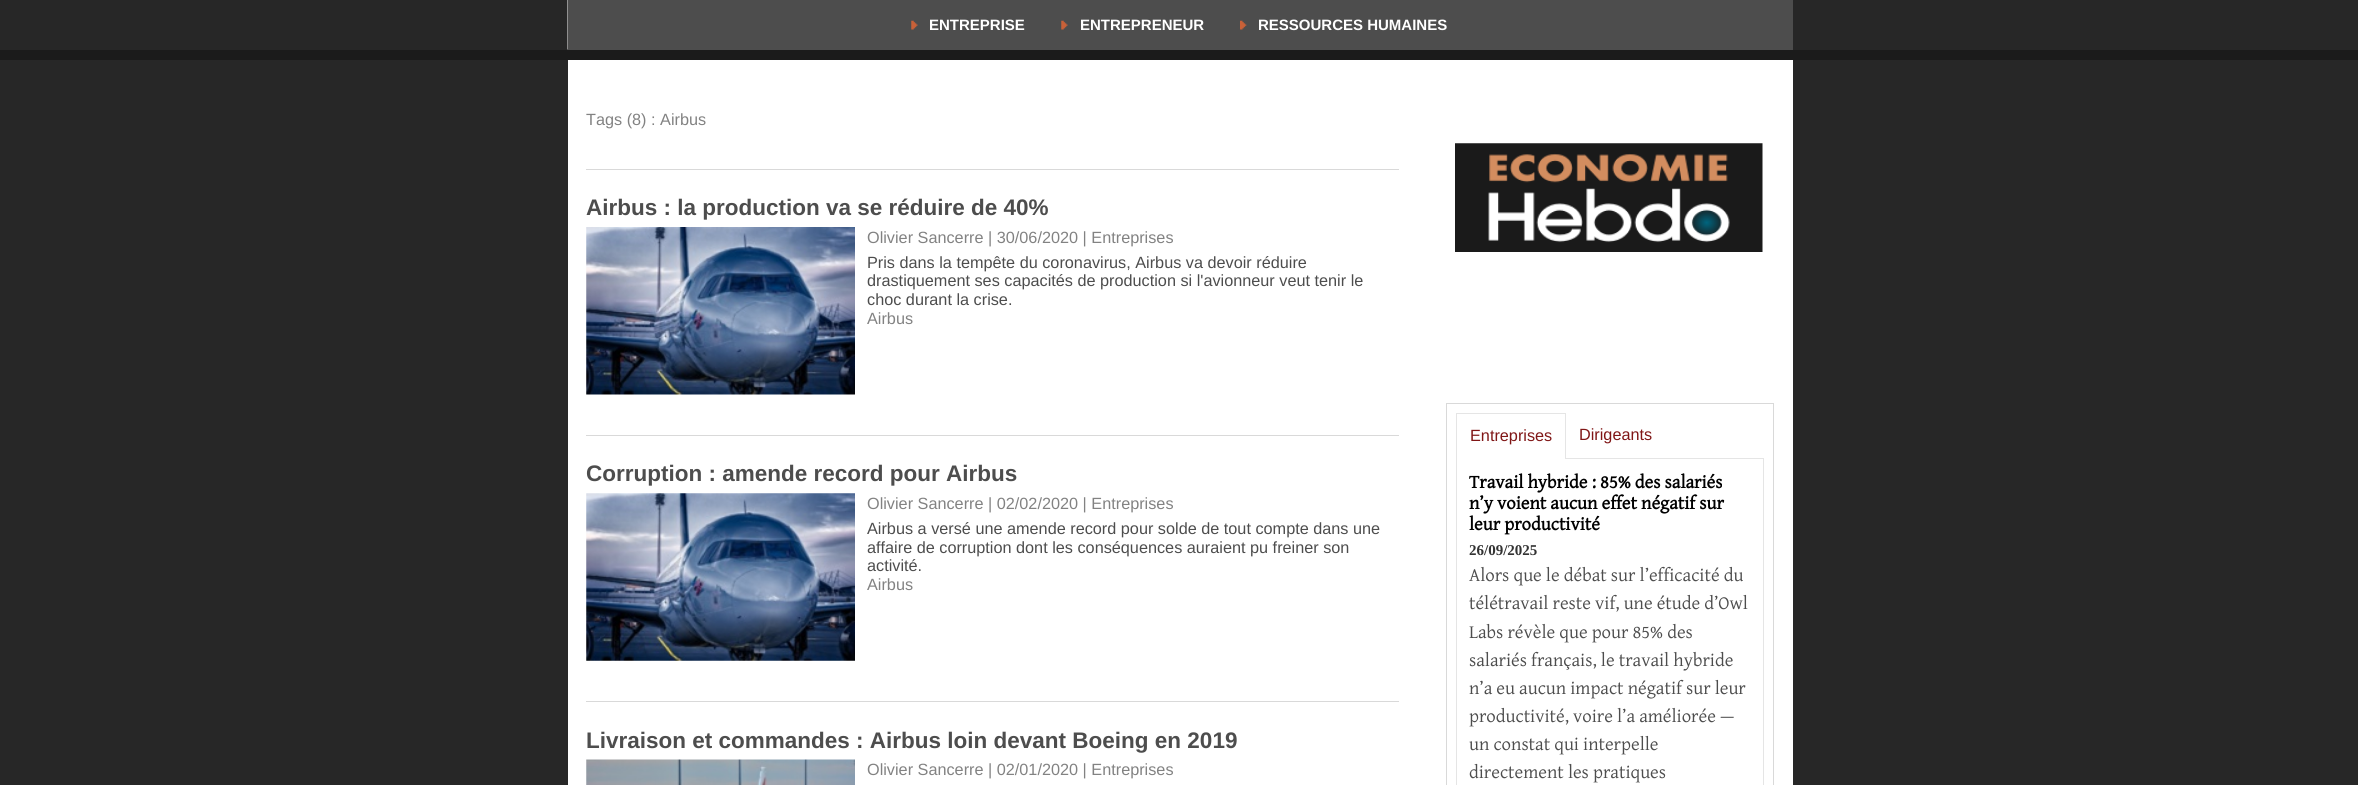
import math
import cairo


def paste(ctx, path, x, y, w, h):
	ctx.save()
	ctx.set_source_surface(cairo.ImageSurface.create_from_png(path), x, y)
	ctx.rectangle(x, y, w, h)
	ctx.fill()
	ctx.restore()

def draw(ctx):
	ctx.set_source_rgb(0.153, 0.153, 0.153)
	ctx.paint()
	ctx.set_source_rgb(0.106, 0.106, 0.106)
	ctx.rectangle(0, 50, 2358, 10)
	ctx.fill()
	paste(ctx, 'media/1.png', 567, 0, 1, 50)
	ctx.set_source_rgb(0.302, 0.302, 0.302)
	ctx.rectangle(568, 0, 1225, 50)
	ctx.fill()
	paste(ctx, 'media/2.png', 911, 20, 7, 10)
	ctx.select_font_face('Liberation Sans', cairo.FONT_SLANT_NORMAL, cairo.FONT_WEIGHT_BOLD)
	ctx.set_font_size(15)
	ctx.set_source_rgb(1, 1, 1)
	ctx.move_to(929, 30)
	ctx.show_text('ENTREPRISE')
	paste(ctx, 'media/2.png', 1061, 20, 7, 10)
	ctx.move_to(1080, 30)
	ctx.show_text('ENTREPRENEUR')
	paste(ctx, 'media/3.png', 1240, 20, 7, 10)
	ctx.move_to(1258, 30)
	ctx.show_text('RESSOURCES HUMAINES')
	ctx.rectangle(568, 60, 1225, 725)
	ctx.fill()
	ctx.set_source_rgb(0.851, 0.851, 0.851)
	ctx.rectangle(586, 169, 813, 1)
	ctx.fill()
	ctx.select_font_face('Liberation Sans')
	ctx.set_font_size(16.25)
	ctx.set_source_rgb(0.51, 0.51, 0.51)
	ctx.move_to(586, 125)
	ctx.show_text('Tags (8) : Airbus')
	ctx.set_source_rgb(0.851, 0.851, 0.851)
	ctx.rectangle(586, 435, 813, 1)
	ctx.fill()
	ctx.select_font_face('Liberation Sans', cairo.FONT_SLANT_NORMAL, cairo.FONT_WEIGHT_BOLD)
	ctx.set_font_size(22.5)
	ctx.set_source_rgb(0.302, 0.302, 0.302)
	ctx.move_to(586, 215)
	ctx.show_text('Airbus : la production va se réduire de 40%')
	paste(ctx, 'media/4.png', 586, 227, 269, 168)
	ctx.select_font_face('Liberation Sans')
	ctx.set_font_size(16.25)
	ctx.set_source_rgb(0.51, 0.51, 0.51)
	ctx.move_to(867, 243)
	ctx.show_text('Olivier Sancerre | 30/06/2020 | Entreprises')
	ctx.set_source_rgb(0.302, 0.302, 0.302)
	for x, y, s in [
		(867, 268, 'Pris dans la tempête du coronavirus, Airbus va devoir réduire'),
		(867, 286, 'drastiquement ses capacités de production si l\'avionneur veut tenir le'),
		(867, 305, 'choc durant la crise.'),
	]:
		ctx.move_to(x, y)
		ctx.show_text(s)
	ctx.set_source_rgb(0.51, 0.51, 0.51)
	ctx.move_to(867, 324)
	ctx.show_text('Airbus')
	ctx.set_source_rgb(0.851, 0.851, 0.851)
	ctx.rectangle(586, 701, 813, 1)
	ctx.fill()
	ctx.select_font_face('Liberation Sans', cairo.FONT_SLANT_NORMAL, cairo.FONT_WEIGHT_BOLD)
	ctx.set_font_size(22.5)
	ctx.set_source_rgb(0.302, 0.302, 0.302)
	ctx.move_to(586, 481)
	ctx.show_text('Corruption : amende record pour Airbus')
	paste(ctx, 'media/5.png', 586, 493, 269, 168)
	ctx.select_font_face('Liberation Sans')
	ctx.set_font_size(16.25)
	ctx.set_source_rgb(0.51, 0.51, 0.51)
	ctx.move_to(867, 509)
	ctx.show_text('Olivier Sancerre | 02/02/2020 | Entreprises')
	ctx.set_source_rgb(0.302, 0.302, 0.302)
	for x, y, s in [
		(867, 534, 'Airbus a versé une amende record pour solde de tout compte dans une'),
		(867, 553, 'affaire de corruption dont les conséquences auraient pu freiner son'),
		(867, 571, 'activité.'),
	]:
		ctx.move_to(x, y)
		ctx.show_text(s)
	ctx.set_source_rgb(0.51, 0.51, 0.51)
	ctx.move_to(867, 590)
	ctx.show_text('Airbus')
	ctx.select_font_face('Liberation Sans', cairo.FONT_SLANT_NORMAL, cairo.FONT_WEIGHT_BOLD)
	ctx.set_font_size(22.5)
	ctx.set_source_rgb(0.302, 0.302, 0.302)
	ctx.move_to(586, 748)
	ctx.show_text('Livraison et commandes : Airbus loin devant Boeing en 2019')
	paste(ctx, 'media/6.png', 586, 759, 269, 26)
	ctx.select_font_face('Liberation Sans')
	ctx.set_font_size(16.25)
	ctx.set_source_rgb(0.51, 0.51, 0.51)
	ctx.move_to(867, 775)
	ctx.show_text('Olivier Sancerre | 02/01/2020 | Entreprises')
	paste(ctx, 'media/7.png', 1455, 143, 308, 109)
	ctx.set_source_rgb(0.851, 0.851, 0.851)
	ctx.rectangle(1446, 403, 328, 1)
	ctx.rectangle(1773, 404, 1, 381)
	ctx.rectangle(1446, 404, 1, 381)
	ctx.fill()
	ctx.rectangle(1456.5, 458.5, 307, 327)
	ctx.set_source_rgb(0.898, 0.898, 0.898)
	ctx.set_line_width(1)
	ctx.stroke()
	ctx.set_source_rgb(1, 1, 1)
	ctx.rectangle(1457, 458, 108, 1)
	ctx.fill()
	ctx.set_source_rgb(0.898, 0.898, 0.898)
	ctx.rectangle(1456, 413, 110, 1)
	ctx.rectangle(1565, 413, 1, 46)
	ctx.rectangle(1456, 413, 1, 46)
	ctx.fill()
	ctx.set_source_rgb(0.502, 0.086, 0.086)
	ctx.move_to(1470, 441)
	ctx.show_text('Entreprises')
	ctx.move_to(1579, 440)
	ctx.show_text('Dirigeants')
	ctx.select_font_face('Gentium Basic', cairo.FONT_SLANT_NORMAL, cairo.FONT_WEIGHT_BOLD)
	ctx.set_font_size(18.75)
	ctx.set_source_rgb(0, 0, 0)
	for x, y, s in [
		(1469, 488, 'Travail hybride : 85% des salariés'),
		(1469, 509, 'n’y voient aucun effet négatif sur'),
		(1469, 530, 'leur productivité'),
	]:
		ctx.move_to(x, y)
		ctx.show_text(s)
	ctx.select_font_face('Liberation Serif', cairo.FONT_SLANT_NORMAL, cairo.FONT_WEIGHT_BOLD)
	ctx.set_font_size(15)
	ctx.set_source_rgb(0.2, 0.2, 0.2)
	ctx.move_to(1469, 555)
	ctx.show_text('26/09/2025')
	ctx.select_font_face('Gentium Basic')
	ctx.set_font_size(18.75)
	ctx.set_source_rgb(0.302, 0.302, 0.302)
	for x, y, s in [
		(1469, 581, 'Alors que le débat sur l’efficacité du'),
		(1469, 609, 'télétravail reste vif, une étude d’Owl'),
		(1469, 638, 'Labs révèle que pour 85% des'),
		(1469, 666, 'salariés français, le travail hybride'),
		(1469, 694, 'n’a eu aucun impact négatif sur leur'),
		(1469, 722, 'productivité, voire l’a améliorée —'),
		(1469, 750, 'un constat qui interpelle'),
		(1469, 778, 'directement les pratiques'),
	]:
		ctx.move_to(x, y)
		ctx.show_text(s)


surface = cairo.ImageSurface(cairo.FORMAT_RGB24, 2358, 785)
ctx = cairo.Context(surface)
options = cairo.FontOptions()
options.set_hint_metrics(cairo.HINT_METRICS_OFF)
options.set_hint_style(cairo.HINT_STYLE_NONE)
ctx.set_font_options(options)
ctx.set_miter_limit(4)
draw(ctx)
surface.write_to_png('image.png')
